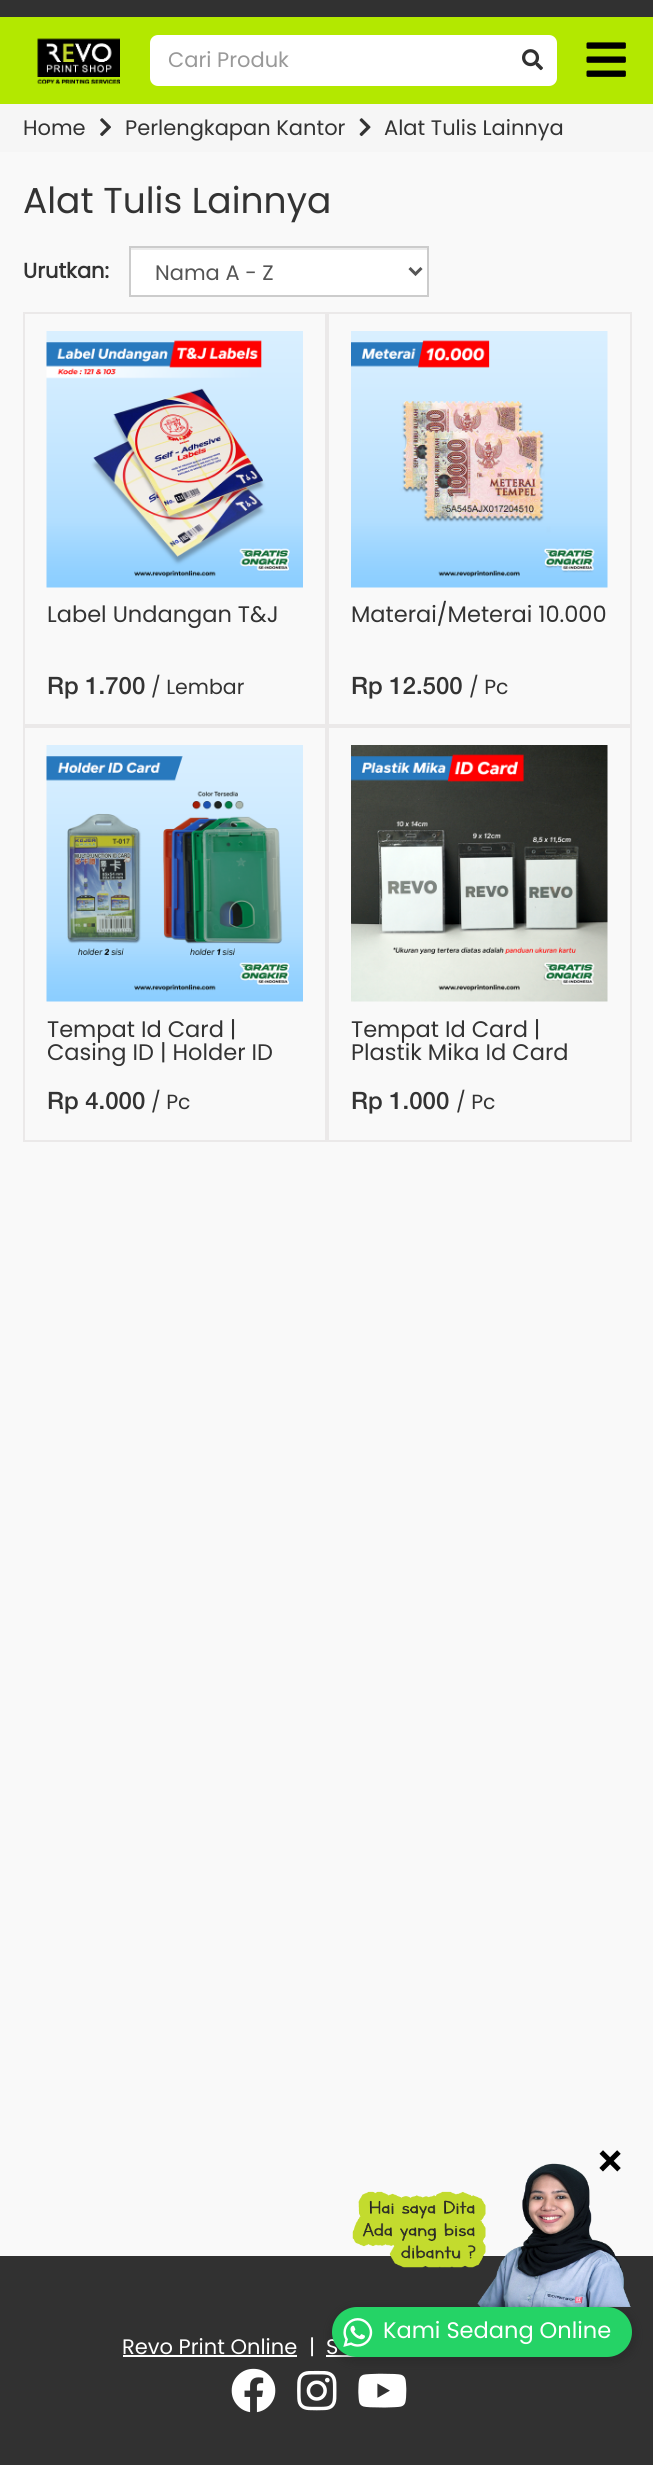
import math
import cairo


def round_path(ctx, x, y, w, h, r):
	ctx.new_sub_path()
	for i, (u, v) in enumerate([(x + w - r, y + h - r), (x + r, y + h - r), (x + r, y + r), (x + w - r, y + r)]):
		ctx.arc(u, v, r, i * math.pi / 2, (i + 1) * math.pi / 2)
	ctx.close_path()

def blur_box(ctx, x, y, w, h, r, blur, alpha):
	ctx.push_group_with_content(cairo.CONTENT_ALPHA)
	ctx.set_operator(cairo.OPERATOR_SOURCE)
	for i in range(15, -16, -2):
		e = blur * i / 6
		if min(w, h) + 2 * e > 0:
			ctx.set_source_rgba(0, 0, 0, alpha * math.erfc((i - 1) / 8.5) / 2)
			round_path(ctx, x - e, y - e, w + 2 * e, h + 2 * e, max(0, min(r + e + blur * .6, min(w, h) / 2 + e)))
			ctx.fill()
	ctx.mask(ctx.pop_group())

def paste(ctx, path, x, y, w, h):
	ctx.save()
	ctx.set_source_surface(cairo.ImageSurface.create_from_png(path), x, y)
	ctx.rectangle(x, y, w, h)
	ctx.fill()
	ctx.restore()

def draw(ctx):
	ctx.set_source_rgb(0.976, 0.976, 0.976)
	ctx.paint()
	ctx.set_source_rgb(0.192, 0.192, 0.192)
	ctx.rectangle(0, 0, 653, 17)
	ctx.fill()
	ctx.set_source_rgb(0.702, 0.91, 0)
	ctx.rectangle(0, 17, 653, 87)
	ctx.fill()
	paste(ctx, 'media/1.png', 37, 38, 83, 46)
	ctx.set_source_rgb(1, 1, 1)
	round_path(ctx, 150, 35, 407, 51, 8)
	ctx.fill()
	ctx.select_font_face('Poppins')
	ctx.set_font_size(21)
	ctx.set_source_rgb(0.6, 0.6, 0.6)
	ctx.move_to(168, 67)
	ctx.show_text('Cari Produk')
	paste(ctx, 'media/2.png', 522, 49, 21, 22)
	paste(ctx, 'media/3.png', 586, 42, 40, 35)
	ctx.set_source_rgb(0.961, 0.961, 0.961)
	ctx.rectangle(0, 104, 653, 48)
	ctx.fill()
	ctx.set_source_rgb(0.2, 0.2, 0.2)
	ctx.move_to(23, 135)
	ctx.show_text('Home')
	paste(ctx, 'media/4.png', 100, 118, 11, 18)
	ctx.move_to(125, 135)
	ctx.show_text('Perlengkapan Kantor')
	paste(ctx, 'media/5.png', 359, 118, 12, 19)
	ctx.move_to(384, 135)
	ctx.show_text('Alat Tulis Lainnya')
	ctx.set_font_size(36)
	ctx.move_to(23, 213)
	ctx.show_text('Alat Tulis Lainnya')
	ctx.select_font_face('Poppins', cairo.FONT_SLANT_NORMAL, cairo.FONT_WEIGHT_BOLD)
	ctx.set_font_size(21)
	ctx.move_to(23, 278)
	ctx.show_text('Urutkan:')
	ctx.set_source_rgb(1, 1, 1)
	ctx.rectangle(131, 250, 296, 45)
	ctx.fill()
	ctx.set_source_rgb(0.925, 0.925, 0.925)
	ctx.rectangle(131, 248, 297, 2)
	ctx.fill()
	ctx.rectangle(130, 247, 298, 49)
	ctx.set_source_rgb(0.8, 0.8, 0.8)
	ctx.stroke()
	ctx.new_path()
	ctx.move_to(409.5, 268)
	ctx.line_to(415.5, 274)
	ctx.line_to(421.5, 268)
	ctx.set_source_rgb(0.333, 0.333, 0.333)
	ctx.set_line_width(3)
	ctx.stroke()
	ctx.select_font_face('Poppins')
	ctx.move_to(155, 280)
	ctx.show_text('Nama A - Z')
	ctx.rectangle(24, 313, 302, 412)
	ctx.set_source_rgb(0.918, 0.914, 0.914)
	ctx.set_line_width(2)
	ctx.stroke()
	paste(ctx, 'media/6.png', 46, 331, 257, 257)
	ctx.set_font_size(22.5)
	ctx.set_source_rgb(0.2, 0.2, 0.2)
	ctx.move_to(47, 622)
	ctx.show_text('Label Undangan T&J')
	ctx.select_font_face('Helvetica Neue Medium')
	ctx.set_font_size(24)
	ctx.move_to(47, 694)
	ctx.show_text('Rp 1.700')
	ctx.select_font_face('Poppins')
	ctx.set_font_size(20.5)
	ctx.move_to(151, 694)
	ctx.show_text('/ Lembar')
	ctx.rectangle(328, 313, 303, 412)
	ctx.set_source_rgb(0.918, 0.914, 0.914)
	ctx.stroke()
	paste(ctx, 'media/7.png', 351, 331, 257, 257)
	ctx.set_font_size(22.5)
	ctx.set_source_rgb(0.2, 0.2, 0.2)
	ctx.move_to(351, 622)
	ctx.show_text('Materai/Meterai 10.000')
	ctx.select_font_face('Helvetica Neue Medium')
	ctx.set_font_size(24)
	ctx.move_to(351, 694)
	ctx.show_text('Rp 12.500')
	ctx.select_font_face('Poppins')
	ctx.set_font_size(20.5)
	ctx.move_to(469, 694)
	ctx.show_text('/ Pc')
	ctx.rectangle(24, 727, 302, 414)
	ctx.set_source_rgb(0.918, 0.914, 0.914)
	ctx.stroke()
	paste(ctx, 'media/8.png', 46, 745, 257, 257)
	ctx.set_font_size(22.5)
	ctx.set_source_rgb(0.2, 0.2, 0.2)
	ctx.move_to(47, 1037)
	ctx.show_text('Tempat Id Card |')
	ctx.move_to(47, 1060)
	ctx.show_text('Casing ID | Holder ID')
	ctx.select_font_face('Helvetica Neue Medium')
	ctx.set_font_size(24)
	ctx.move_to(47, 1109)
	ctx.show_text('Rp 4.000')
	ctx.select_font_face('Poppins')
	ctx.set_font_size(20.5)
	ctx.move_to(151, 1109)
	ctx.show_text('/ Pc')
	ctx.rectangle(328, 727, 303, 414)
	ctx.set_source_rgb(0.918, 0.914, 0.914)
	ctx.stroke()
	paste(ctx, 'media/9.png', 351, 745, 257, 257)
	ctx.set_font_size(22.5)
	ctx.set_source_rgb(0.2, 0.2, 0.2)
	ctx.move_to(351, 1037)
	ctx.show_text('Tempat Id Card |')
	ctx.move_to(351, 1060)
	ctx.show_text('Plastik Mika Id Card')
	ctx.select_font_face('Helvetica Neue Medium')
	ctx.set_font_size(24)
	ctx.move_to(351, 1109)
	ctx.show_text('Rp 1.000')
	ctx.select_font_face('Poppins')
	ctx.set_font_size(20.5)
	ctx.move_to(456, 1109)
	ctx.show_text('/ Pc')
	ctx.set_source_rgb(0.192, 0.192, 0.192)
	ctx.rectangle(0, 2256, 653, 209)
	ctx.fill()
	paste(ctx, 'media/10.png', 352, 2163, 279, 144)
	ctx.select_font_face('Poppins', cairo.FONT_SLANT_NORMAL, cairo.FONT_WEIGHT_BOLD)
	ctx.set_font_size(45)
	ctx.set_source_rgb(0, 0, 0)
	ctx.move_to(595, 2178)
	ctx.show_text('×')
	ctx.set_source_rgb(1, 1, 1)
	ctx.rectangle(326, 2355, 31, 2)
	ctx.fill()
	paste(ctx, 'media/13.png', 297, 2370, 40, 41)
	paste(ctx, 'media/14.png', 358, 2373, 49, 35)
	ctx.set_source_rgb(0.118, 0.118, 0.118)
	blur_box(ctx, 330, 2307, 306, 56, 28, 4, 0.3)
	ctx.select_font_face('Poppins')
	ctx.set_font_size(21)
	ctx.set_source_rgb(1, 1, 1)
	ctx.move_to(326, 2354)
	ctx.show_text('S')
	ctx.set_source_rgb(0.145, 0.827, 0.4)
	round_path(ctx, 332, 2307, 300, 50, 25)
	ctx.fill()
	paste(ctx, 'media/11.png', 343, 2318, 30, 29)
	ctx.set_font_size(22.5)
	ctx.set_source_rgb(1, 1, 1)
	ctx.move_to(383, 2338)
	ctx.show_text('Kami Sedang Online')
	ctx.set_font_size(21)
	ctx.move_to(122, 2354)
	ctx.show_text('Revo Print Online')
	ctx.rectangle(123, 2355, 174, 2)
	ctx.fill()
	ctx.move_to(309, 2354)
	ctx.show_text('|')
	paste(ctx, 'media/12.png', 231, 2368, 45, 45)


surface = cairo.ImageSurface(cairo.FORMAT_RGB24, 653, 2465)
ctx = cairo.Context(surface)
options = cairo.FontOptions()
options.set_hint_metrics(cairo.HINT_METRICS_OFF)
options.set_hint_style(cairo.HINT_STYLE_NONE)
ctx.set_font_options(options)
ctx.set_miter_limit(4)
draw(ctx)
surface.write_to_png('image.png')
